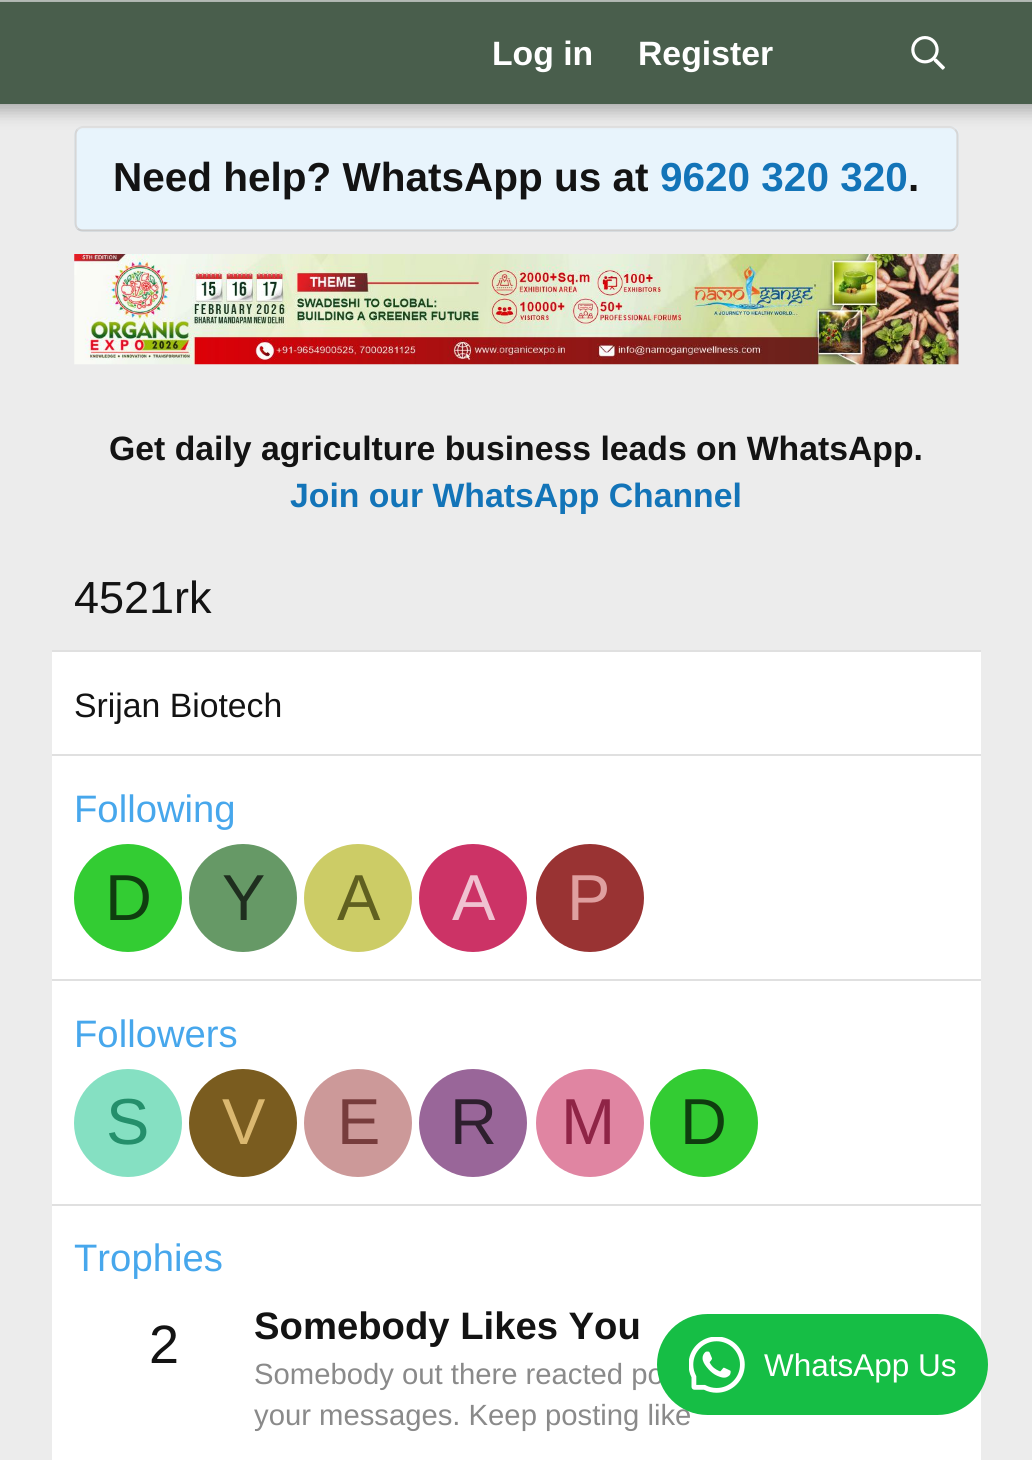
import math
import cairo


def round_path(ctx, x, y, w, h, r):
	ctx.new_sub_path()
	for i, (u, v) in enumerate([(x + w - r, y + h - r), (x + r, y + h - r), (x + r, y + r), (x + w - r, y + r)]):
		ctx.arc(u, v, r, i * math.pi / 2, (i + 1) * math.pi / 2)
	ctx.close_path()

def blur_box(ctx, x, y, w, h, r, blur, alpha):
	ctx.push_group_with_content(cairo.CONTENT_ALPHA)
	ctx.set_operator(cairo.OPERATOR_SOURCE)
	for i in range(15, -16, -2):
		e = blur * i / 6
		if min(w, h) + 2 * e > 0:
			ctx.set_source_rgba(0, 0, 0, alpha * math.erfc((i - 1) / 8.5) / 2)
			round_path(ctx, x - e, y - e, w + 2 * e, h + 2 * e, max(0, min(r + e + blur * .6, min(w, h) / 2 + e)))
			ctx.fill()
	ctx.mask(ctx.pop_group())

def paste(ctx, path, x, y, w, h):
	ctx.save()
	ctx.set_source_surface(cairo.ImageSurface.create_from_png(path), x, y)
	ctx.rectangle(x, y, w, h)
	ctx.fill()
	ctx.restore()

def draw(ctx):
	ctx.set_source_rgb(0.922, 0.922, 0.922)
	ctx.paint()
	ctx.set_source_rgb(0.886, 0.914, 0.89)
	ctx.rectangle(0, 0, 1032, 2)
	ctx.fill()
	ctx.set_source_rgb(0.91, 0.957, 0.988)
	round_path(ctx, 74, 126, 885, 106, 9)
	ctx.fill()
	ctx.new_path()
	ctx.move_to(77.5, 129.5)
	ctx.curve_to(79, 128, 81, 127, 83, 127)
	ctx.line_to(949.5, 127)
	ctx.curve_to(951.5, 127, 953.5, 128, 955, 129.5)
	ctx.set_source_rgb(0.878, 0.878, 0.878)
	ctx.set_line_width(2.2)
	ctx.stroke()
	ctx.new_path()
	ctx.move_to(955, 129.5)
	ctx.curve_to(956.5, 131, 957.5, 133, 957.5, 135)
	ctx.line_to(957.5, 223)
	ctx.curve_to(957.5, 225, 956.5, 227, 955, 228.5)
	ctx.set_source_rgb(0.839, 0.839, 0.839)
	ctx.stroke()
	ctx.new_path()
	ctx.move_to(955, 228.5)
	ctx.curve_to(953.5, 230, 951.5, 230.5, 949.5, 230.5)
	ctx.line_to(83, 230.5)
	ctx.curve_to(81, 230.5, 79, 230, 77.5, 228.5)
	ctx.set_source_rgb(0.8, 0.8, 0.8)
	ctx.stroke()
	ctx.new_path()
	ctx.move_to(77.5, 228.5)
	ctx.curve_to(76, 227, 75.5, 225, 75.5, 223)
	ctx.line_to(75.5, 135)
	ctx.curve_to(75.5, 133, 76, 131, 77.5, 129.5)
	ctx.set_source_rgb(0.839, 0.839, 0.839)
	ctx.stroke()
	ctx.save()
	ctx.set_fill_rule(cairo.FILL_RULE_EVEN_ODD)
	ctx.new_path()
	ctx.move_to(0, 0)
	ctx.line_to(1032, 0)
	ctx.line_to(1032, 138)
	ctx.line_to(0, 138)
	ctx.close_path()
	ctx.move_to(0, 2)
	ctx.line_to(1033, 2)
	ctx.line_to(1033, 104)
	ctx.line_to(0, 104)
	ctx.close_path()
	ctx.clip()
	ctx.set_source_rgb(0, 0, 0)
	blur_box(ctx, -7, -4, 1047, 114, 0, 9, 0.3)
	ctx.restore()
	ctx.set_source_rgba(0.255, 0.345, 0.271, 0.95)
	ctx.rectangle(0, 2, 1032, 102)
	ctx.fill()
	ctx.select_font_face('Liberation Sans', cairo.FONT_SLANT_NORMAL, cairo.FONT_WEIGHT_BOLD)
	ctx.set_font_size(33.75)
	ctx.set_source_rgb(1, 1, 1)
	ctx.move_to(492, 65)
	ctx.show_text('Log in')
	ctx.move_to(638, 65)
	ctx.show_text('Register')
	paste(ctx, 'media/1.png', 911, 36, 34, 34)
	ctx.set_font_size(40.5)
	ctx.set_source_rgb(0.078, 0.078, 0.078)
	ctx.move_to(113, 191)
	ctx.show_text('Need help? WhatsApp us at')
	ctx.set_source_rgb(0.078, 0.455, 0.722)
	ctx.move_to(660, 191)
	ctx.show_text('9620 320 320')
	ctx.set_source_rgb(0.078, 0.078, 0.078)
	ctx.move_to(908, 191)
	ctx.show_text('.')
	paste(ctx, 'media/2.png', 74, 254, 885, 111)
	ctx.set_font_size(33.75)
	ctx.move_to(109, 460)
	ctx.show_text('Get daily agriculture business leads on WhatsApp.')
	ctx.set_source_rgb(0.078, 0.455, 0.722)
	ctx.move_to(290, 507)
	ctx.show_text('Join our WhatsApp Channel')
	ctx.select_font_face('Liberation Sans')
	ctx.set_font_size(45)
	ctx.set_source_rgb(0.078, 0.078, 0.078)
	ctx.move_to(74, 613)
	ctx.show_text('4521rk')
	ctx.set_source_rgb(1, 1, 1)
	ctx.rectangle(52, 652, 929, 808)
	ctx.fill()
	ctx.set_source_rgb(0.878, 0.878, 0.878)
	ctx.rectangle(52, 650, 929, 2)
	ctx.fill()
	ctx.set_font_size(33.75)
	ctx.set_source_rgb(0.078, 0.078, 0.078)
	ctx.move_to(74, 717)
	ctx.show_text('Srijan Biotech')
	ctx.set_source_rgb(0.878, 0.878, 0.878)
	ctx.rectangle(52, 754, 929, 2)
	ctx.fill()
	ctx.set_font_size(38.25)
	ctx.set_source_rgb(0.278, 0.655, 0.922)
	ctx.move_to(74, 822)
	ctx.show_text('Following')
	ctx.set_source_rgb(0.2, 0.8, 0.2)
	ctx.new_path()
	ctx.arc(128, 898, 54, 0, 2 * math.pi)
	ctx.fill()
	ctx.set_font_size(65)
	ctx.set_source_rgb(0.059, 0.239, 0.059)
	ctx.move_to(105, 920)
	ctx.show_text('D')
	ctx.set_source_rgb(0.4, 0.6, 0.4)
	ctx.new_path()
	ctx.arc(243, 898, 54, 0, 2 * math.pi)
	ctx.fill()
	ctx.set_source_rgb(0.122, 0.18, 0.122)
	ctx.move_to(222, 920)
	ctx.show_text('Y')
	ctx.set_source_rgb(0.8, 0.8, 0.4)
	ctx.new_path()
	ctx.arc(358, 898, 54, 0, 2 * math.pi)
	ctx.fill()
	ctx.set_source_rgb(0.376, 0.376, 0.125)
	ctx.move_to(337, 920)
	ctx.show_text('A')
	ctx.set_source_rgb(0.8, 0.2, 0.4)
	ctx.new_path()
	ctx.arc(473, 898, 54, 0, 2 * math.pi)
	ctx.fill()
	ctx.set_source_rgb(0.941, 0.761, 0.82)
	ctx.move_to(452, 920)
	ctx.show_text('A')
	ctx.set_source_rgb(0.6, 0.2, 0.2)
	ctx.new_path()
	ctx.arc(590, 898, 54, 0, 2 * math.pi)
	ctx.fill()
	ctx.set_source_rgb(0.875, 0.624, 0.624)
	ctx.move_to(567, 920)
	ctx.show_text('P')
	ctx.set_source_rgb(0.878, 0.878, 0.878)
	ctx.rectangle(52, 979, 929, 2)
	ctx.fill()
	ctx.set_font_size(38.25)
	ctx.set_source_rgb(0.278, 0.655, 0.922)
	ctx.move_to(74, 1047)
	ctx.show_text('Followers')
	ctx.set_source_rgb(0.522, 0.878, 0.761)
	ctx.new_path()
	ctx.arc(128, 1123, 54, 0, 2 * math.pi)
	ctx.fill()
	ctx.set_font_size(65)
	ctx.set_source_rgb(0.141, 0.561, 0.42)
	ctx.move_to(106, 1144)
	ctx.show_text('S')
	ctx.set_source_rgb(0.478, 0.361, 0.122)
	ctx.new_path()
	ctx.arc(243, 1123, 54, 0, 2 * math.pi)
	ctx.fill()
	ctx.set_source_rgb(0.859, 0.722, 0.439)
	ctx.move_to(222, 1144)
	ctx.show_text('V')
	ctx.set_source_rgb(0.8, 0.6, 0.6)
	ctx.new_path()
	ctx.arc(358, 1123, 54, 0, 2 * math.pi)
	ctx.fill()
	ctx.set_source_rgb(0.467, 0.235, 0.235)
	ctx.move_to(337, 1144)
	ctx.show_text('E')
	ctx.set_source_rgb(0.6, 0.4, 0.6)
	ctx.new_path()
	ctx.arc(473, 1123, 54, 0, 2 * math.pi)
	ctx.fill()
	ctx.set_source_rgb(0.18, 0.122, 0.18)
	ctx.move_to(450, 1144)
	ctx.show_text('R')
	ctx.set_source_rgb(0.878, 0.522, 0.635)
	ctx.new_path()
	ctx.arc(590, 1123, 54, 0, 2 * math.pi)
	ctx.fill()
	ctx.set_source_rgb(0.561, 0.141, 0.275)
	ctx.move_to(561, 1144)
	ctx.show_text('M')
	ctx.set_source_rgb(0.2, 0.8, 0.2)
	ctx.new_path()
	ctx.arc(704, 1123, 54, 0, 2 * math.pi)
	ctx.fill()
	ctx.set_source_rgb(0.059, 0.239, 0.059)
	ctx.move_to(680, 1144)
	ctx.show_text('D')
	ctx.set_source_rgb(0.878, 0.878, 0.878)
	ctx.rectangle(52, 1204, 929, 2)
	ctx.fill()
	ctx.set_font_size(38.25)
	ctx.set_source_rgb(0.278, 0.655, 0.922)
	ctx.move_to(74, 1271)
	ctx.show_text('Trophies')
	ctx.set_font_size(54)
	ctx.set_source_rgb(0.078, 0.078, 0.078)
	ctx.move_to(149, 1363)
	ctx.show_text('2')
	ctx.select_font_face('Liberation Sans', cairo.FONT_SLANT_NORMAL, cairo.FONT_WEIGHT_BOLD)
	ctx.set_font_size(38.25)
	ctx.move_to(254, 1339)
	ctx.show_text('Somebody Likes You')
	ctx.select_font_face('Liberation Sans')
	ctx.set_font_size(29.25)
	ctx.set_source_rgb(0.541, 0.541, 0.541)
	ctx.move_to(254, 1384)
	ctx.show_text('Somebody out there reacted po')
	ctx.move_to(254, 1425)
	ctx.show_text('your messages. Keep posting like')
	ctx.set_source_rgb(0.086, 0.745, 0.271)
	round_path(ctx, 657, 1314, 331, 101, 50.5)
	ctx.fill()
	paste(ctx, 'media/3.png', 689, 1337, 56, 56)
	ctx.set_font_size(31.5)
	ctx.set_source_rgb(1, 1, 1)
	ctx.move_to(764, 1376)
	ctx.show_text('WhatsApp Us')


surface = cairo.ImageSurface(cairo.FORMAT_RGB24, 1032, 1460)
ctx = cairo.Context(surface)
options = cairo.FontOptions()
options.set_hint_metrics(cairo.HINT_METRICS_OFF)
options.set_hint_style(cairo.HINT_STYLE_NONE)
ctx.set_font_options(options)
ctx.set_miter_limit(4)
draw(ctx)
surface.write_to_png('image.png')
